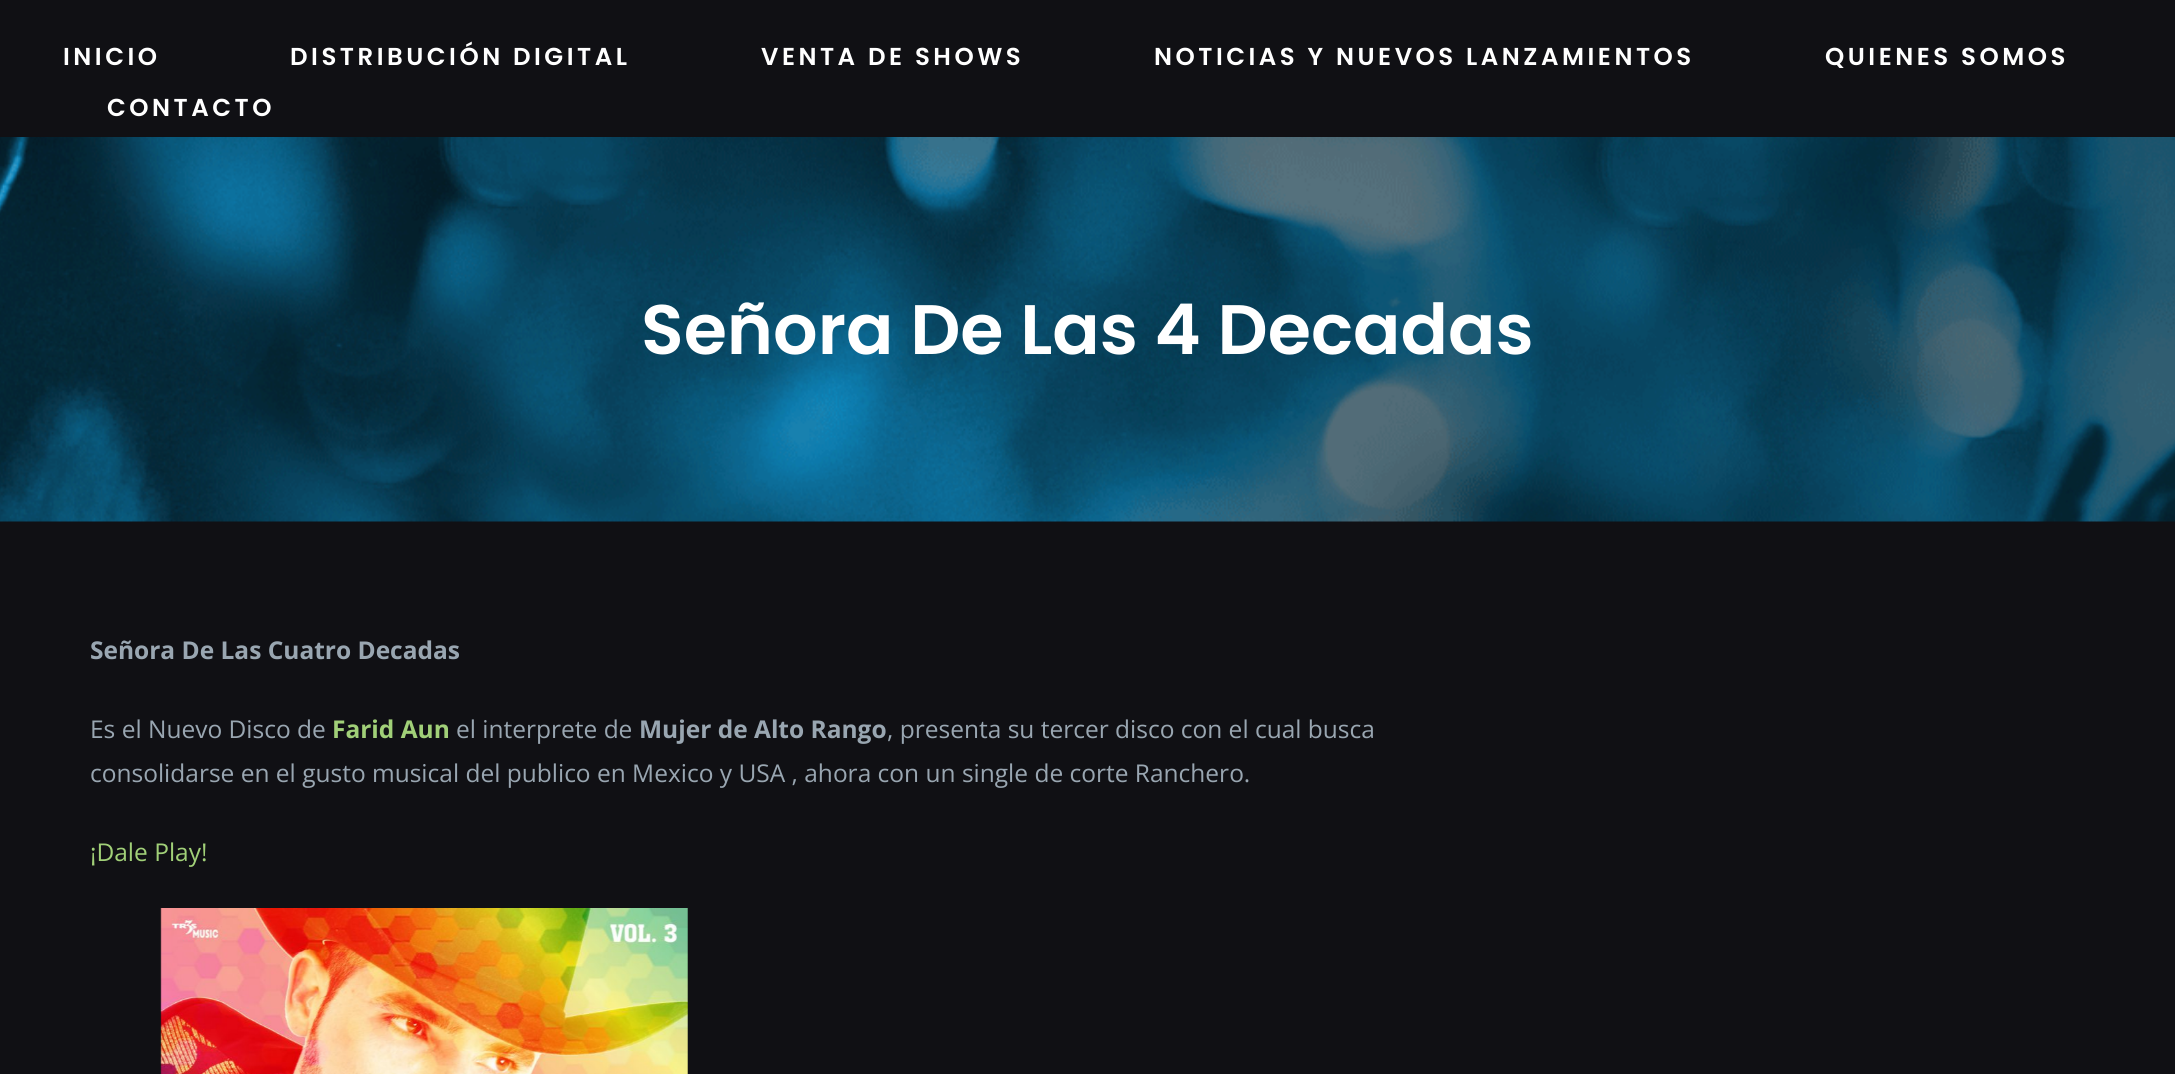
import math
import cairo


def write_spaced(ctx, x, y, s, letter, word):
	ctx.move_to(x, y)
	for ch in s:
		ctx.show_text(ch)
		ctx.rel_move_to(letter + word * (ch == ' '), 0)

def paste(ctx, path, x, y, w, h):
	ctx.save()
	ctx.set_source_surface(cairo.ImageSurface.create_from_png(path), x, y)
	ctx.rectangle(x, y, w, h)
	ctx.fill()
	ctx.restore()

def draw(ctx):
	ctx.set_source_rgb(0.063, 0.063, 0.082)
	ctx.paint()
	ctx.select_font_face('Poppins SemiBold')
	ctx.set_font_size(24.5)
	ctx.set_source_rgb(1, 1, 1)
	for x, y, s in [
		(63, 65, 'INICIO'),
		(290, 65, 'DISTRIBUCIÓN DIGITAL'),
		(761, 65, 'VENTA DE SHOWS'),
		(1154, 65, 'NOTICIAS Y NUEVOS LANZAMIENTOS'),
		(1825, 65, 'QUIENES SOMOS'),
		(107, 116, 'CONTACTO'),
	]:
		write_spaced(ctx, x, y, s, 3.5, 0)
	paste(ctx, 'media/1.png', 0, 137, 2175, 385)
	ctx.set_font_size(70)
	ctx.move_to(641, 354)
	ctx.show_text('Señora De Las 4 Decadas')
	ctx.select_font_face('Open Sans', cairo.FONT_SLANT_NORMAL, cairo.FONT_WEIGHT_BOLD)
	ctx.set_font_size(24.5)
	ctx.set_source_rgb(0.6, 0.651, 0.694)
	ctx.move_to(90, 659)
	ctx.show_text('Señora De Las Cuatro Decadas')
	ctx.select_font_face('Open Sans')
	ctx.move_to(90, 738)
	ctx.show_text('Es el Nuevo Disco de')
	ctx.select_font_face('Open Sans', cairo.FONT_SLANT_NORMAL, cairo.FONT_WEIGHT_BOLD)
	ctx.set_source_rgb(0.631, 0.816, 0.471)
	ctx.move_to(332, 738)
	ctx.show_text('Farid Aun')
	ctx.select_font_face('Open Sans')
	ctx.set_source_rgb(0.6, 0.651, 0.694)
	ctx.move_to(456, 738)
	ctx.show_text('el interprete de')
	ctx.select_font_face('Open Sans', cairo.FONT_SLANT_NORMAL, cairo.FONT_WEIGHT_BOLD)
	ctx.move_to(639, 738)
	ctx.show_text('Mujer de Alto Rango')
	ctx.select_font_face('Open Sans')
	ctx.move_to(887, 738)
	ctx.show_text(', presenta su tercer disco con el cual busca')
	ctx.move_to(90, 782)
	ctx.show_text('consolidarse en el gusto musical del publico en Mexico y USA , ahora con un single de corte Ranchero.')
	ctx.set_source_rgb(0.631, 0.816, 0.471)
	ctx.move_to(90, 861)
	ctx.show_text('¡Dale Play!')
	paste(ctx, 'media/2.png', 160, 908, 528, 166)


surface = cairo.ImageSurface(cairo.FORMAT_RGB24, 2175, 1074)
ctx = cairo.Context(surface)
options = cairo.FontOptions()
options.set_hint_metrics(cairo.HINT_METRICS_OFF)
options.set_hint_style(cairo.HINT_STYLE_NONE)
ctx.set_font_options(options)
ctx.set_miter_limit(4)
draw(ctx)
surface.write_to_png('image.png')
